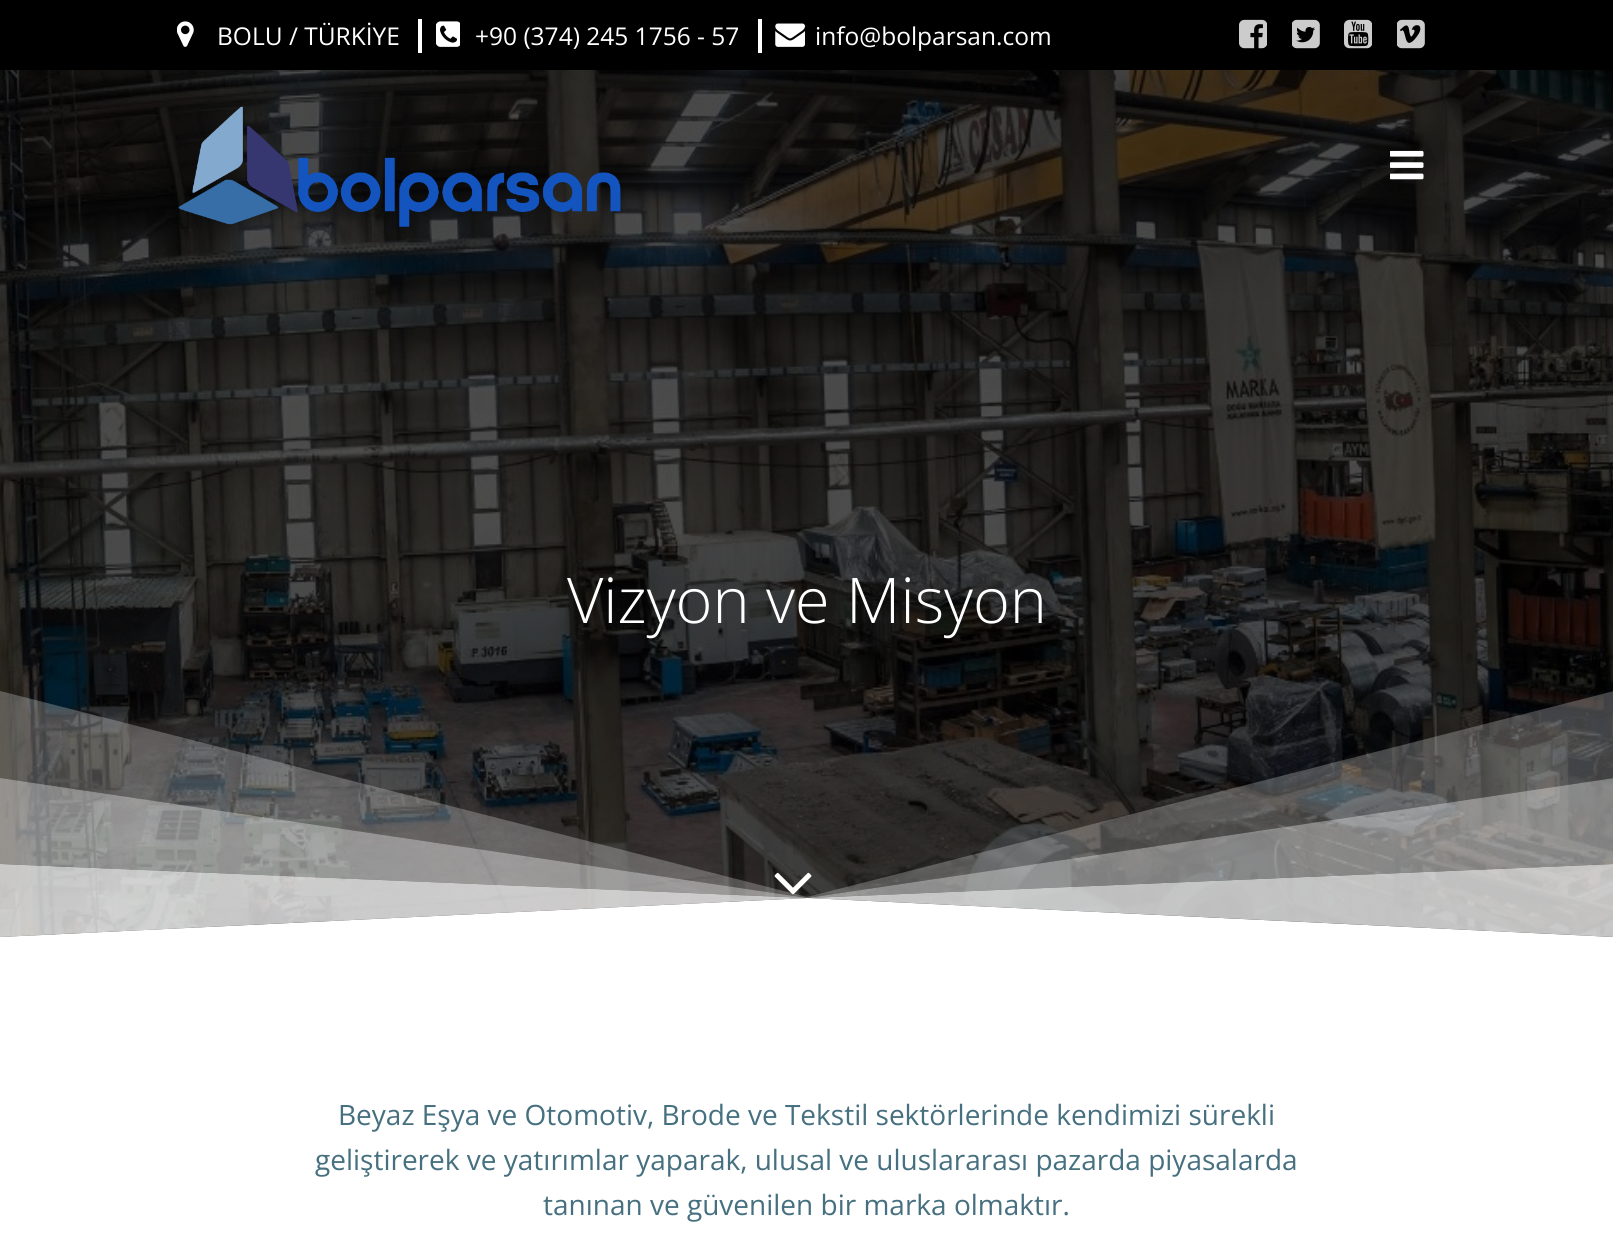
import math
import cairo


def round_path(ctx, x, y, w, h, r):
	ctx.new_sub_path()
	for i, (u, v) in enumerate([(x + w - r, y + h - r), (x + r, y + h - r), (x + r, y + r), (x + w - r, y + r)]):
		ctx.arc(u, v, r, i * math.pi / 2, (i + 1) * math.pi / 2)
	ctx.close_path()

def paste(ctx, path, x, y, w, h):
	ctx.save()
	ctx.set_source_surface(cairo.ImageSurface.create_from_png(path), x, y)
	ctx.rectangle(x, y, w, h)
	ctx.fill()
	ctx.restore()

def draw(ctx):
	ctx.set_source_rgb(1, 1, 1)
	ctx.paint()
	ctx.set_source_rgb(0, 0, 0)
	ctx.rectangle(0, 0, 1613, 70)
	ctx.fill()
	paste(ctx, 'media/1.png', 177, 21, 17, 26)
	ctx.select_font_face('Open Sans')
	ctx.set_font_size(24.5)
	ctx.set_source_rgb(1, 1, 1)
	ctx.move_to(217, 45)
	ctx.show_text('BOLU / TÜRKİYE')
	ctx.rectangle(418, 19, 4, 34)
	ctx.fill()
	paste(ctx, 'media/2.png', 436, 21, 24, 26)
	ctx.move_to(475, 45)
	ctx.show_text('+90 (374) 245 1756 - 57')
	ctx.rectangle(758, 19, 4, 34)
	ctx.fill()
	paste(ctx, 'media/3.png', 775, 23, 30, 24)
	ctx.move_to(815, 45)
	ctx.show_text('info@bolparsan.com')
	paste(ctx, 'media/4.png', 1239, 19, 28, 30)
	paste(ctx, 'media/5.png', 1292, 19, 28, 30)
	paste(ctx, 'media/6.png', 1344, 19, 28, 30)
	paste(ctx, 'media/7.png', 1397, 19, 28, 30)
	paste(ctx, 'media/10.png', 0, 70, 1613, 867)
	paste(ctx, 'media/8.png', 178, 106, 443, 121)
	ctx.set_source_rgba(0, 0, 0, 0.1)
	round_path(ctx, 1377, 137, 60, 59, 29.5)
	ctx.fill()
	paste(ctx, 'media/9.png', 1390, 150, 34, 30)
	ctx.select_font_face('Open Sans Light')
	ctx.set_font_size(63)
	ctx.set_source_rgb(1, 1, 1)
	ctx.move_to(567, 623)
	ctx.show_text('Vizyon ve Misyon')
	ctx.set_source_rgba(1, 1, 1, 0.25)
	ctx.new_path()
	ctx.move_to(0, 778)
	ctx.line_to(0, 691)
	ctx.line_to(807, 897)
	ctx.line_to(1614, 691)
	ctx.line_to(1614, 778)
	ctx.line_to(807, 898)
	ctx.close_path()
	ctx.fill()
	ctx.set_source_rgba(1, 1, 1, 0.5)
	ctx.new_path()
	ctx.move_to(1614, 778)
	ctx.line_to(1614, 864)
	ctx.line_to(807, 898)
	ctx.close_path()
	ctx.fill()
	ctx.new_path()
	ctx.move_to(0, 864)
	ctx.line_to(0, 778)
	ctx.line_to(807, 898)
	ctx.close_path()
	ctx.fill()
	ctx.set_source_rgba(1, 1, 1, 0.75)
	ctx.new_path()
	ctx.move_to(0, 937)
	ctx.line_to(0, 864)
	ctx.line_to(807, 898)
	ctx.close_path()
	ctx.fill()
	ctx.new_path()
	ctx.move_to(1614, 864)
	ctx.line_to(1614, 937)
	ctx.line_to(807, 898)
	ctx.close_path()
	ctx.fill()
	ctx.set_source_rgb(1, 1, 1)
	ctx.new_path()
	ctx.move_to(0, 954)
	ctx.line_to(0, 937)
	ctx.line_to(807, 898)
	ctx.line_to(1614, 937)
	ctx.line_to(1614, 954)
	ctx.close_path()
	ctx.fill()
	paste(ctx, 'media/11.png', 774, 872, 38, 23)
	ctx.select_font_face('Open Sans')
	ctx.set_font_size(28)
	ctx.set_source_rgb(0.275, 0.439, 0.498)
	for x, y, s in [
		(338, 1125, 'Beyaz Eşya ve Otomotiv, Brode ve Tekstil sektörlerinde kendimizi sürekli'),
		(315, 1170, 'geliştirerek ve yatırımlar yaparak, ulusal ve uluslararası pazarda piyasalarda'),
		(543, 1215, 'tanınan ve güvenilen bir marka olmaktır.'),
	]:
		ctx.move_to(x, y)
		ctx.show_text(s)


surface = cairo.ImageSurface(cairo.FORMAT_RGB24, 1613, 1237)
ctx = cairo.Context(surface)
options = cairo.FontOptions()
options.set_hint_metrics(cairo.HINT_METRICS_OFF)
options.set_hint_style(cairo.HINT_STYLE_NONE)
ctx.set_font_options(options)
ctx.set_miter_limit(4)
draw(ctx)
surface.write_to_png('image.png')
